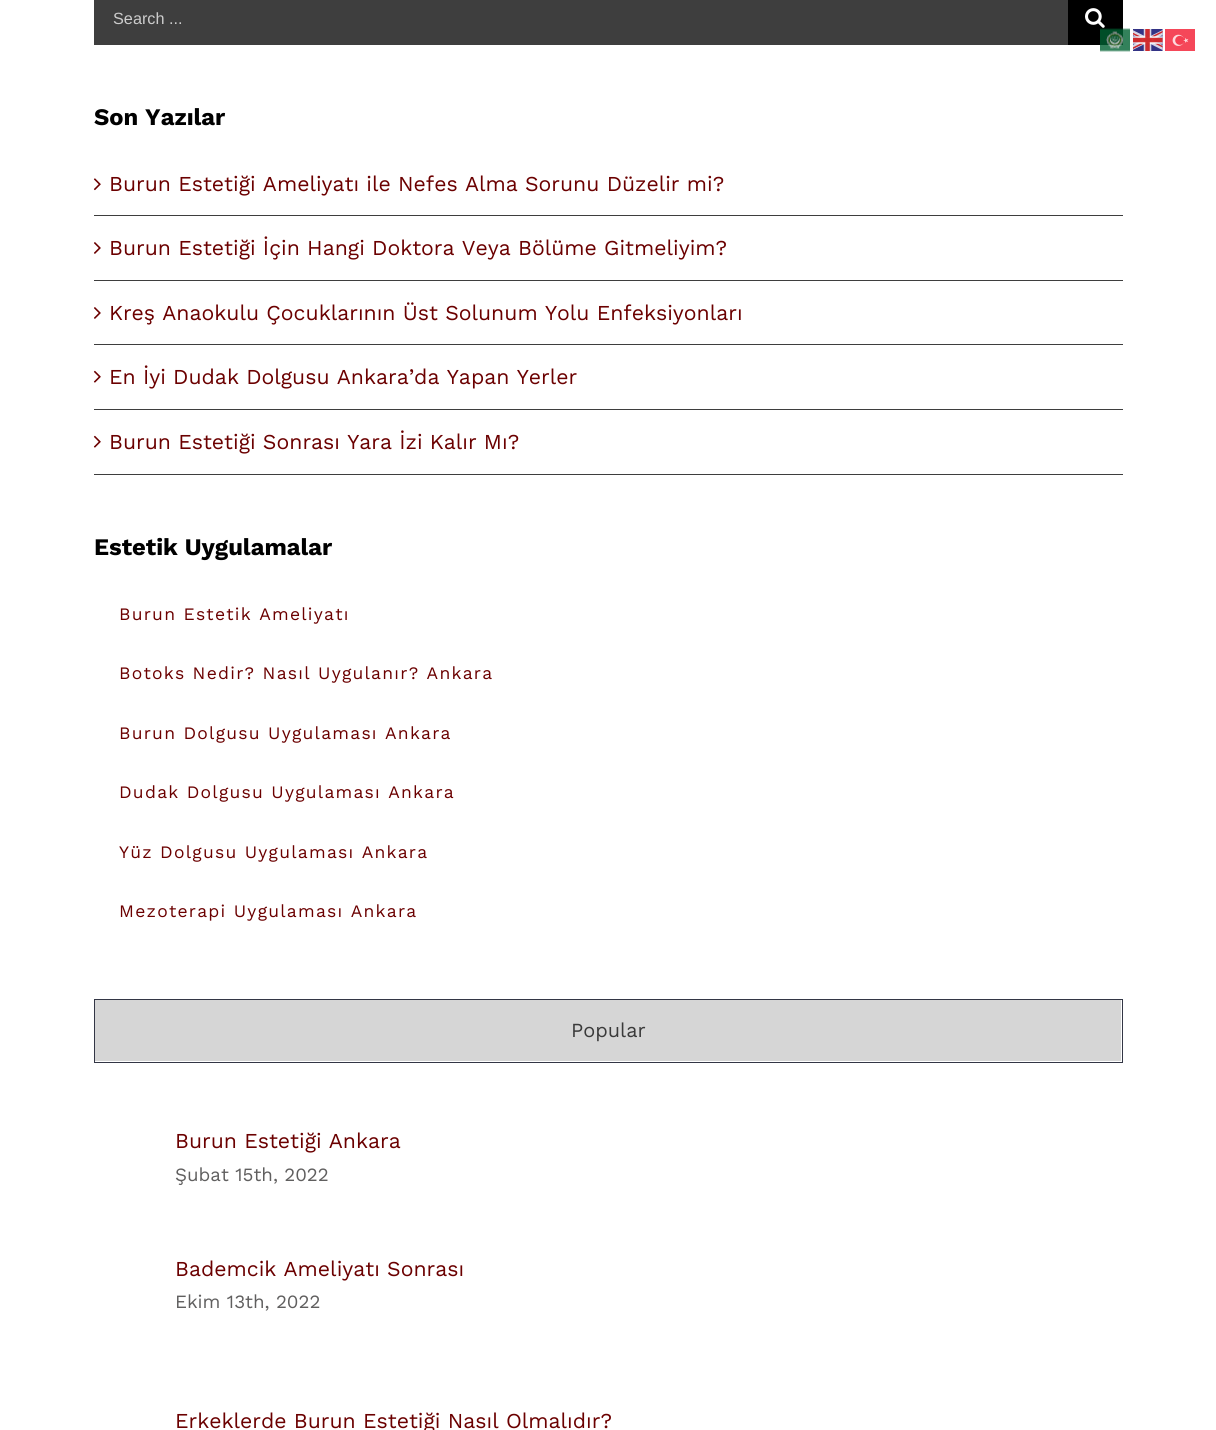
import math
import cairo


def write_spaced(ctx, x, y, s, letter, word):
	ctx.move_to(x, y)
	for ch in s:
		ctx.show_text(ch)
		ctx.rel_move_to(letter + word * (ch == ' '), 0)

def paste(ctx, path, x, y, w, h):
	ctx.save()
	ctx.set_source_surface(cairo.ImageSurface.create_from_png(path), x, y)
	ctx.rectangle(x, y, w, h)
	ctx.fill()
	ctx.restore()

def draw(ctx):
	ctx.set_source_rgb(1, 1, 1)
	ctx.paint()
	ctx.set_source_rgb(0.243, 0.243, 0.243)
	ctx.rectangle(94, 0, 974, 45)
	ctx.fill()
	ctx.select_font_face('Liberation Sans')
	ctx.set_font_size(16.25)
	ctx.set_source_rgb(0.8, 0.8, 0.8)
	ctx.move_to(113, 24)
	ctx.show_text('Search ...')
	ctx.set_source_rgb(0, 0, 0)
	ctx.rectangle(1068, 0, 55, 45)
	ctx.fill()
	paste(ctx, 'media/1.png', 1085, 8, 20, 20)
	ctx.select_font_face('Work Sans', cairo.FONT_SLANT_NORMAL, cairo.FONT_WEIGHT_BOLD)
	ctx.set_font_size(23.75)
	ctx.move_to(94, 125)
	ctx.show_text('Son Yazılar')
	ctx.set_source_rgb(0.243, 0.243, 0.243)
	ctx.rectangle(94, 215, 1029, 1)
	ctx.fill()
	paste(ctx, 'media/2.png', 93, 178, 8, 13)
	ctx.select_font_face('Work Sans')
	ctx.set_font_size(21.25)
	ctx.set_source_rgb(0.42, 0, 0)
	ctx.move_to(109, 191)
	ctx.show_text('Burun Estetiği Ameliyatı ile Nefes Alma Sorunu Düzelir mi?')
	ctx.set_source_rgb(0.243, 0.243, 0.243)
	ctx.rectangle(94, 280, 1029, 1)
	ctx.fill()
	paste(ctx, 'media/3.png', 94, 242, 7, 12)
	ctx.set_source_rgb(0.42, 0, 0)
	ctx.move_to(109, 255)
	ctx.show_text('Burun Estetiği İçin Hangi Doktora Veya Bölüme Gitmeliyim?')
	ctx.set_source_rgb(0.243, 0.243, 0.243)
	ctx.rectangle(94, 344, 1029, 1)
	ctx.fill()
	paste(ctx, 'media/3.png', 94, 307, 7, 12)
	ctx.set_source_rgb(0.42, 0, 0)
	ctx.move_to(109, 320)
	ctx.show_text('Kreş Anaokulu Çocuklarının Üst Solunum Yolu Enfeksiyonları')
	ctx.set_source_rgb(0.243, 0.243, 0.243)
	ctx.rectangle(94, 409, 1029, 1)
	ctx.fill()
	paste(ctx, 'media/4.png', 93, 370, 8, 13)
	ctx.set_source_rgb(0.42, 0, 0)
	ctx.move_to(109, 384)
	ctx.show_text('En İyi Dudak Dolgusu Ankara’da Yapan Yerler')
	ctx.set_source_rgb(0.243, 0.243, 0.243)
	ctx.rectangle(94, 474, 1029, 1)
	ctx.fill()
	paste(ctx, 'media/4.png', 93, 435, 8, 13)
	ctx.set_source_rgb(0.42, 0, 0)
	ctx.move_to(109, 449)
	ctx.show_text('Burun Estetiği Sonrası Yara İzi Kalır Mı?')
	ctx.select_font_face('Work Sans', cairo.FONT_SLANT_NORMAL, cairo.FONT_WEIGHT_BOLD)
	ctx.set_font_size(23.75)
	ctx.set_source_rgb(0, 0, 0)
	ctx.move_to(94, 555)
	ctx.show_text('Estetik Uygulamalar')
	ctx.select_font_face('Work Sans')
	ctx.set_font_size(17.5)
	ctx.set_source_rgb(0.42, 0, 0)
	for x, y, s in [
		(119, 620, 'Burun Estetik Ameliyatı'),
		(119, 679, 'Botoks Nedir? Nasıl Uygulanır? Ankara'),
		(119, 739, 'Burun Dolgusu Uygulaması Ankara'),
		(119, 798, 'Dudak Dolgusu Uygulaması Ankara'),
		(119, 858, 'Yüz Dolgusu Uygulaması Ankara'),
		(119, 917, 'Mezoterapi Uygulaması Ankara'),
	]:
		write_spaced(ctx, x, y, s, 1.25, 0)
	ctx.rectangle(94.5, 999.5, 1028, 63)
	ctx.set_source_rgb(0.2, 0.212, 0.271)
	ctx.set_line_width(1)
	ctx.stroke()
	ctx.set_source_rgb(0.839, 0.839, 0.839)
	ctx.rectangle(95, 1000, 1026, 61)
	ctx.fill()
	ctx.set_font_size(20)
	ctx.set_source_rgb(0.227, 0.227, 0.227)
	ctx.move_to(571, 1037)
	ctx.show_text('Popular')
	ctx.set_font_size(21.25)
	ctx.set_source_rgb(0.42, 0, 0)
	ctx.move_to(175, 1148)
	ctx.show_text('Burun Estetiği Ankara')
	ctx.set_font_size(18.75)
	ctx.set_source_rgb(0.376, 0.373, 0.373)
	ctx.move_to(175, 1181)
	ctx.show_text('Şubat 15th, 2022')
	ctx.set_font_size(21.25)
	ctx.set_source_rgb(0.42, 0, 0)
	ctx.move_to(175, 1276)
	ctx.show_text('Bademcik Ameliyatı Sonrası')
	ctx.set_font_size(18.75)
	ctx.set_source_rgb(0.376, 0.373, 0.373)
	ctx.move_to(175, 1308)
	ctx.show_text('Ekim 13th, 2022')
	ctx.set_font_size(21.25)
	ctx.set_source_rgb(0.42, 0, 0)
	ctx.move_to(175, 1428)
	ctx.show_text('Erkeklerde Burun Estetiği Nasıl Olmalıdır?')
	paste(ctx, 'media/5.png', 1100, 28, 30, 24)
	paste(ctx, 'media/6.png', 1133, 29, 30, 22)
	paste(ctx, 'media/7.png', 1165, 29, 30, 22)


surface = cairo.ImageSurface(cairo.FORMAT_RGB24, 1216, 1430)
ctx = cairo.Context(surface)
options = cairo.FontOptions()
options.set_hint_metrics(cairo.HINT_METRICS_OFF)
options.set_hint_style(cairo.HINT_STYLE_NONE)
ctx.set_font_options(options)
ctx.set_miter_limit(4)
draw(ctx)
surface.write_to_png('image.png')
